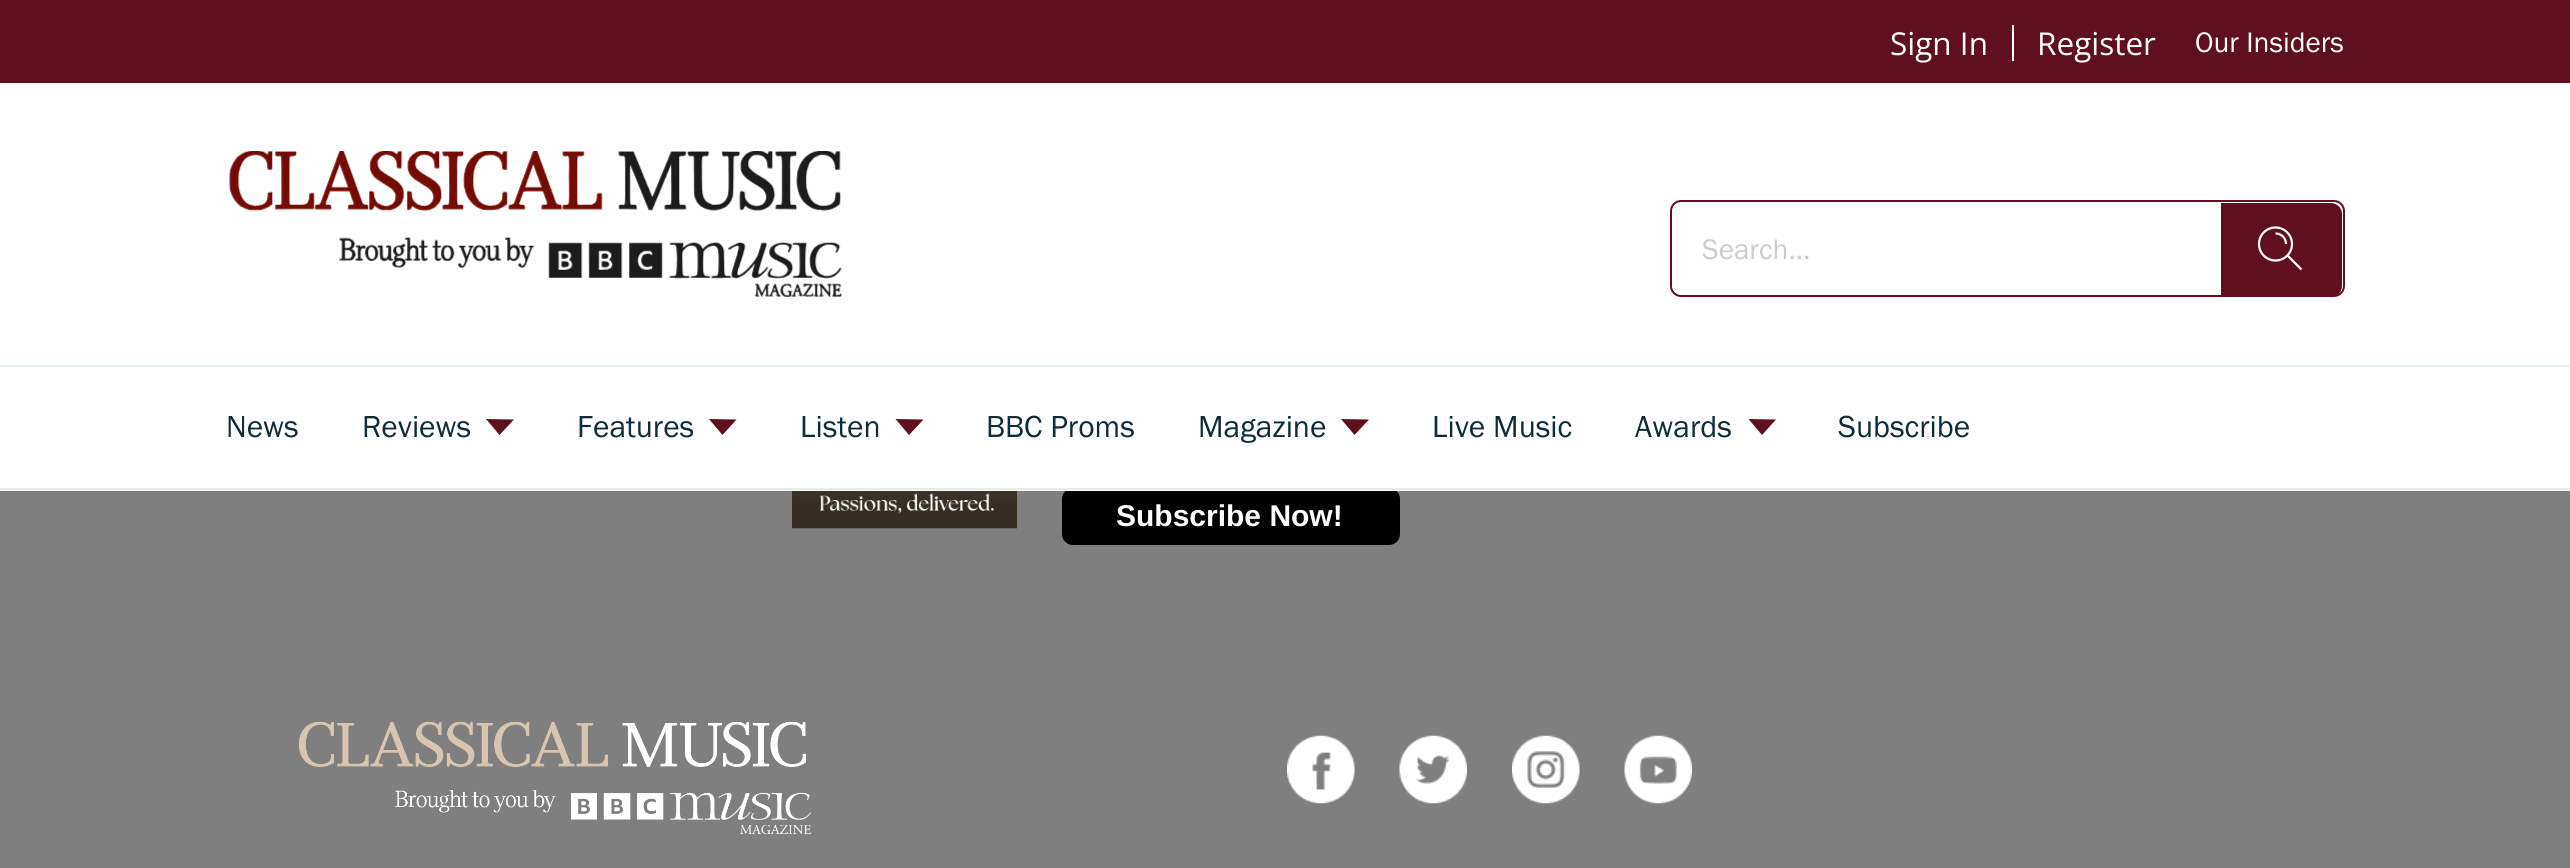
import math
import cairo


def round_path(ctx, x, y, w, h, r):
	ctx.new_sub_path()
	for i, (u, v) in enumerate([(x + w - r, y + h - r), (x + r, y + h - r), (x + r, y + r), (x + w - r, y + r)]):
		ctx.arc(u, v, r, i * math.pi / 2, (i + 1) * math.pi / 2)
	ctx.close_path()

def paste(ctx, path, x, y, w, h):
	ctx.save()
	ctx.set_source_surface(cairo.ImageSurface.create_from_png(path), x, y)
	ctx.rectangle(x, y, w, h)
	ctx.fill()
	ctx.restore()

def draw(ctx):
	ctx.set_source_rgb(0.498, 0.498, 0.498)
	ctx.paint()
	ctx.set_source_rgb(0.373, 0.059, 0.114)
	ctx.rectangle(0, 0, 2570, 83)
	ctx.fill()
	ctx.select_font_face('Open Sans')
	ctx.set_font_size(31.5)
	ctx.set_source_rgb(1, 1, 1)
	ctx.move_to(1890, 55)
	ctx.show_text('Sign In')
	ctx.rectangle(2012, 25, 2, 36)
	ctx.fill()
	ctx.move_to(2037, 55)
	ctx.show_text('Register')
	ctx.select_font_face('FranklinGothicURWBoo')
	ctx.set_font_size(29.25)
	ctx.move_to(2195, 52)
	ctx.show_text('Our Insiders')
	ctx.rectangle(0, 83, 2570, 282)
	ctx.fill()
	paste(ctx, 'media/1.png', 229, 151, 613, 146)
	round_path(ctx, 1671, 201, 673, 95, 10)
	ctx.set_source_rgb(0.373, 0.059, 0.114)
	ctx.stroke()
	ctx.set_source_rgb(1, 1, 1)
	round_path(ctx, 1672, 203, 670, 92, 11)
	ctx.fill()
	ctx.set_source_rgb(0.8, 0.8, 0.8)
	ctx.move_to(1702, 259)
	ctx.show_text('Search...')
	ctx.set_source_rgb(0.373, 0.059, 0.114)
	ctx.new_path()
	ctx.move_to(2221, 203)
	ctx.line_to(2331, 203)
	ctx.curve_to(2337, 203, 2342, 208, 2342, 214)
	ctx.line_to(2342, 286)
	ctx.curve_to(2342, 292, 2337, 297, 2331, 297)
	ctx.line_to(2221, 297)
	ctx.close_path()
	ctx.fill()
	ctx.arc(2275.5, 244, 16.5, 0, 2 * math.pi)
	ctx.set_source_rgb(1, 1, 1)
	ctx.set_line_width(2.2)
	ctx.stroke()
	ctx.new_path()
	ctx.move_to(2286, 244)
	ctx.curve_to(2286, 238, 2281.5, 233.5, 2275.5, 233.5)
	ctx.stroke()
	ctx.new_path()
	ctx.move_to(2301.5, 269.5)
	ctx.line_to(2287.5, 255.5)
	ctx.set_line_join(cairo.LINE_JOIN_ROUND)
	ctx.stroke()
	ctx.set_source_rgb(0, 0, 0)
	round_path(ctx, 1064.5, 490.5, 333, 52, 8.5)
	ctx.fill_preserve()
	ctx.set_line_width(5)
	ctx.set_line_join(cairo.LINE_JOIN_MITER)
	ctx.stroke()
	ctx.set_source_rgb(1, 1, 1)
	ctx.rectangle(0, 367, 2570, 124)
	ctx.fill()
	ctx.set_source_rgb(0.886, 0.937, 0.894)
	ctx.rectangle(0, 365, 2570, 2)
	ctx.rectangle(0, 488, 2570, 2)
	ctx.fill()
	ctx.set_font_size(31.5)
	ctx.set_source_rgb(0.059, 0.173, 0.231)
	ctx.move_to(226, 437)
	ctx.show_text('News')
	ctx.move_to(362, 437)
	ctx.show_text('Reviews')
	ctx.set_source_rgb(0.373, 0.059, 0.114)
	ctx.new_path()
	ctx.move_to(499.5, 435)
	ctx.line_to(486, 419)
	ctx.line_to(514, 419.5)
	ctx.close_path()
	ctx.fill()
	ctx.set_source_rgb(0.059, 0.173, 0.231)
	ctx.move_to(577, 437)
	ctx.show_text('Features')
	ctx.set_source_rgb(0.373, 0.059, 0.114)
	ctx.new_path()
	ctx.move_to(722.5, 435)
	ctx.line_to(709, 419)
	ctx.line_to(736.5, 419.5)
	ctx.close_path()
	ctx.fill()
	ctx.set_source_rgb(0.059, 0.173, 0.231)
	ctx.move_to(800, 437)
	ctx.show_text('Listen')
	ctx.set_source_rgb(0.373, 0.059, 0.114)
	ctx.new_path()
	ctx.move_to(909, 435)
	ctx.line_to(895.5, 419)
	ctx.line_to(923.5, 419.5)
	ctx.close_path()
	ctx.fill()
	ctx.set_source_rgb(0.059, 0.173, 0.231)
	ctx.move_to(986, 437)
	ctx.show_text('BBC Proms')
	ctx.move_to(1198, 437)
	ctx.show_text('Magazine')
	ctx.set_source_rgb(0.373, 0.059, 0.114)
	ctx.new_path()
	ctx.move_to(1354.5, 435)
	ctx.line_to(1341, 419)
	ctx.line_to(1369, 419.5)
	ctx.close_path()
	ctx.fill()
	ctx.set_source_rgb(0.059, 0.173, 0.231)
	ctx.move_to(1432, 437)
	ctx.show_text('Live Music')
	ctx.move_to(1635, 437)
	ctx.show_text('Awards')
	ctx.set_source_rgb(0.373, 0.059, 0.114)
	ctx.new_path()
	ctx.move_to(1762, 435)
	ctx.line_to(1748.5, 419)
	ctx.line_to(1776, 419.5)
	ctx.close_path()
	ctx.fill()
	ctx.set_source_rgb(0.059, 0.173, 0.231)
	ctx.move_to(1838, 437)
	ctx.show_text('Subscribe')
	paste(ctx, 'media/2.png', 792, 491, 225, 38)
	ctx.select_font_face('Liberation Sans', cairo.FONT_SLANT_NORMAL, cairo.FONT_WEIGHT_BOLD)
	ctx.set_font_size(30)
	ctx.set_source_rgb(1, 1, 1)
	ctx.move_to(1116, 526)
	ctx.show_text('Subscribe Now!')
	paste(ctx, 'media/3.png', 299, 721, 513, 114)
	paste(ctx, 'media/4.png', 1287, 735, 68, 69)
	paste(ctx, 'media/5.png', 1399, 735, 68, 69)
	paste(ctx, 'media/6.png', 1512, 735, 68, 69)
	paste(ctx, 'media/7.png', 1624, 735, 68, 69)


surface = cairo.ImageSurface(cairo.FORMAT_RGB24, 2570, 868)
ctx = cairo.Context(surface)
options = cairo.FontOptions()
options.set_hint_metrics(cairo.HINT_METRICS_OFF)
options.set_hint_style(cairo.HINT_STYLE_NONE)
ctx.set_font_options(options)
ctx.set_miter_limit(4)
draw(ctx)
surface.write_to_png('image.png')
